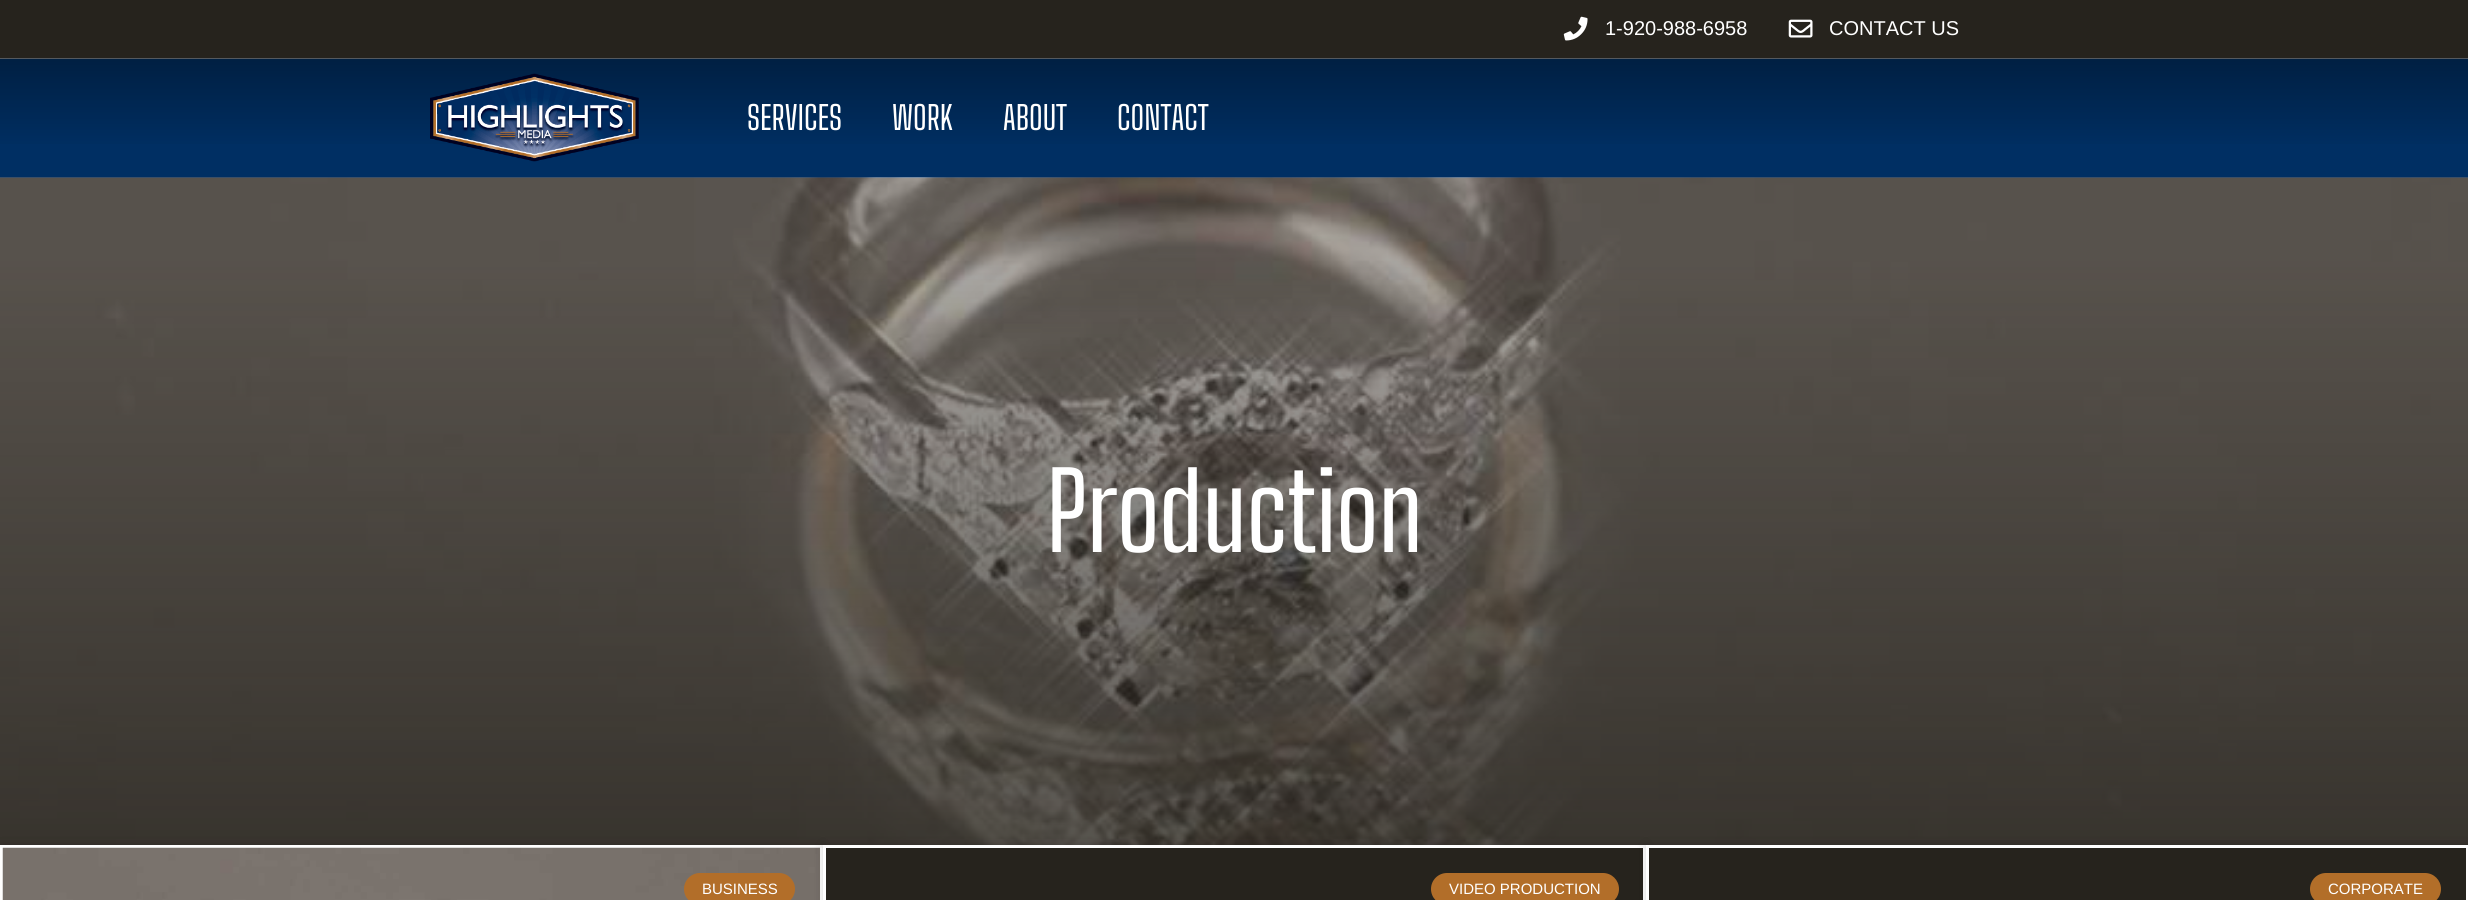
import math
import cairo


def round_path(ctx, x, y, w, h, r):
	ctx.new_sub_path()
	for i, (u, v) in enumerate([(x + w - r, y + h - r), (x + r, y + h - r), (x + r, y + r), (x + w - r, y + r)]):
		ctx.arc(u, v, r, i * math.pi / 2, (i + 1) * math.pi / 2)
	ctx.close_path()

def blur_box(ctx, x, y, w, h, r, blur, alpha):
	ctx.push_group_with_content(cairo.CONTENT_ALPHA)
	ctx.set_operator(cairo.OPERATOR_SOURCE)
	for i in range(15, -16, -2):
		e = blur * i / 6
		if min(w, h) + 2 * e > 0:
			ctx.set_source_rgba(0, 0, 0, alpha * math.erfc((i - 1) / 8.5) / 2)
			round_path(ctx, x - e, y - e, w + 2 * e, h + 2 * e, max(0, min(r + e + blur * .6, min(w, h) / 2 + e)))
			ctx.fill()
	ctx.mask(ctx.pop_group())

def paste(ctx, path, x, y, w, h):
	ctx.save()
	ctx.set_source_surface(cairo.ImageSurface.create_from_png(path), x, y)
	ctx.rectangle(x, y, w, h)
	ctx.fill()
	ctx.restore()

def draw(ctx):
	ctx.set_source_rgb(0, 0.184, 0.388)
	ctx.paint()
	ctx.set_source_rgb(0.149, 0.137, 0.114)
	ctx.rectangle(0, 0, 2468, 58)
	ctx.fill()
	ctx.set_source_rgb(0.329, 0.349, 0.373)
	ctx.rectangle(0, 58, 2468, 1)
	ctx.fill()
	paste(ctx, 'media/1.png', 1563, 16, 25, 25)
	ctx.select_font_face('Liberation Sans')
	ctx.set_font_size(20)
	ctx.set_source_rgb(1, 1, 1)
	ctx.move_to(1605, 35)
	ctx.show_text('1-920-988-6958')
	paste(ctx, 'media/2.png', 1788, 19, 25, 19)
	ctx.move_to(1829, 35)
	ctx.show_text('CONTACT US')
	gradient = cairo.LinearGradient(1234, 59, 1234, 178)
	gradient.add_color_stop_rgba(0, 0, 0, 0, 0.33)
	gradient.add_color_stop_rgba(0.77, 0, 0, 0, 0)
	ctx.set_source(gradient)
	ctx.rectangle(0, 59, 2468, 85)
	ctx.fill()
	paste(ctx, 'media/3.png', 430, 73, 209, 89)
	ctx.select_font_face('Big Shoulders Text')
	ctx.set_font_size(32.5)
	ctx.set_source_rgb(1, 1, 1)
	for x, y, s in [
		(747, 130, 'SERVICES'),
		(892, 130, 'WORK'),
		(1003, 130, 'ABOUT'),
		(1117, 130, 'CONTACT'),
	]:
		ctx.move_to(x, y)
		ctx.show_text(s)
	paste(ctx, 'media/4.png', 0, 177, 2468, 668)
	ctx.set_font_size(106)
	ctx.move_to(1046, 552)
	ctx.show_text('Production')
	ctx.set_source_rgb(0, 0, 0)
	blur_box(ctx, 0, 845, 823, 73, 0, 6, 0.15)
	ctx.rectangle(1.5, 846.5, 820, 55)
	ctx.set_source_rgb(1, 1, 1)
	ctx.set_line_width(3)
	ctx.stroke()
	paste(ctx, 'media/5.png', 2, 847, 818, 53)
	ctx.set_source_rgb(0.698, 0.431, 0.161)
	round_path(ctx, 684, 873, 111, 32, 16)
	ctx.fill()
	ctx.select_font_face('Liberation Sans')
	ctx.set_font_size(15)
	ctx.set_source_rgb(1, 1, 1)
	ctx.move_to(702, 894)
	ctx.show_text('BUSINESS')
	ctx.set_source_rgb(0, 0, 0)
	blur_box(ctx, 823, 845, 823, 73, 0, 6, 0.15)
	ctx.set_source_rgb(0.149, 0.137, 0.114)
	ctx.rectangle(824.5, 846.5, 820, 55)
	ctx.fill_preserve()
	ctx.set_source_rgb(1, 1, 1)
	ctx.stroke()
	ctx.set_source_rgb(0.698, 0.431, 0.161)
	round_path(ctx, 1431, 873, 188, 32, 16)
	ctx.fill()
	ctx.set_source_rgb(1, 1, 1)
	ctx.move_to(1449, 894)
	ctx.show_text('VIDEO PRODUCTION')
	ctx.set_source_rgb(0, 0, 0)
	blur_box(ctx, 1646, 845, 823, 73, 0, 6, 0.15)
	ctx.set_source_rgb(0.149, 0.137, 0.114)
	ctx.rectangle(1647.5, 846.5, 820, 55)
	ctx.fill_preserve()
	ctx.set_source_rgb(1, 1, 1)
	ctx.stroke()
	ctx.set_source_rgb(0.698, 0.431, 0.161)
	round_path(ctx, 2310, 873, 131, 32, 16)
	ctx.fill()
	ctx.set_source_rgb(1, 1, 1)
	ctx.move_to(2328, 894)
	ctx.show_text('CORPORATE')


surface = cairo.ImageSurface(cairo.FORMAT_RGB24, 2468, 900)
ctx = cairo.Context(surface)
options = cairo.FontOptions()
options.set_hint_metrics(cairo.HINT_METRICS_OFF)
options.set_hint_style(cairo.HINT_STYLE_NONE)
ctx.set_font_options(options)
ctx.set_miter_limit(4)
draw(ctx)
surface.write_to_png('image.png')
